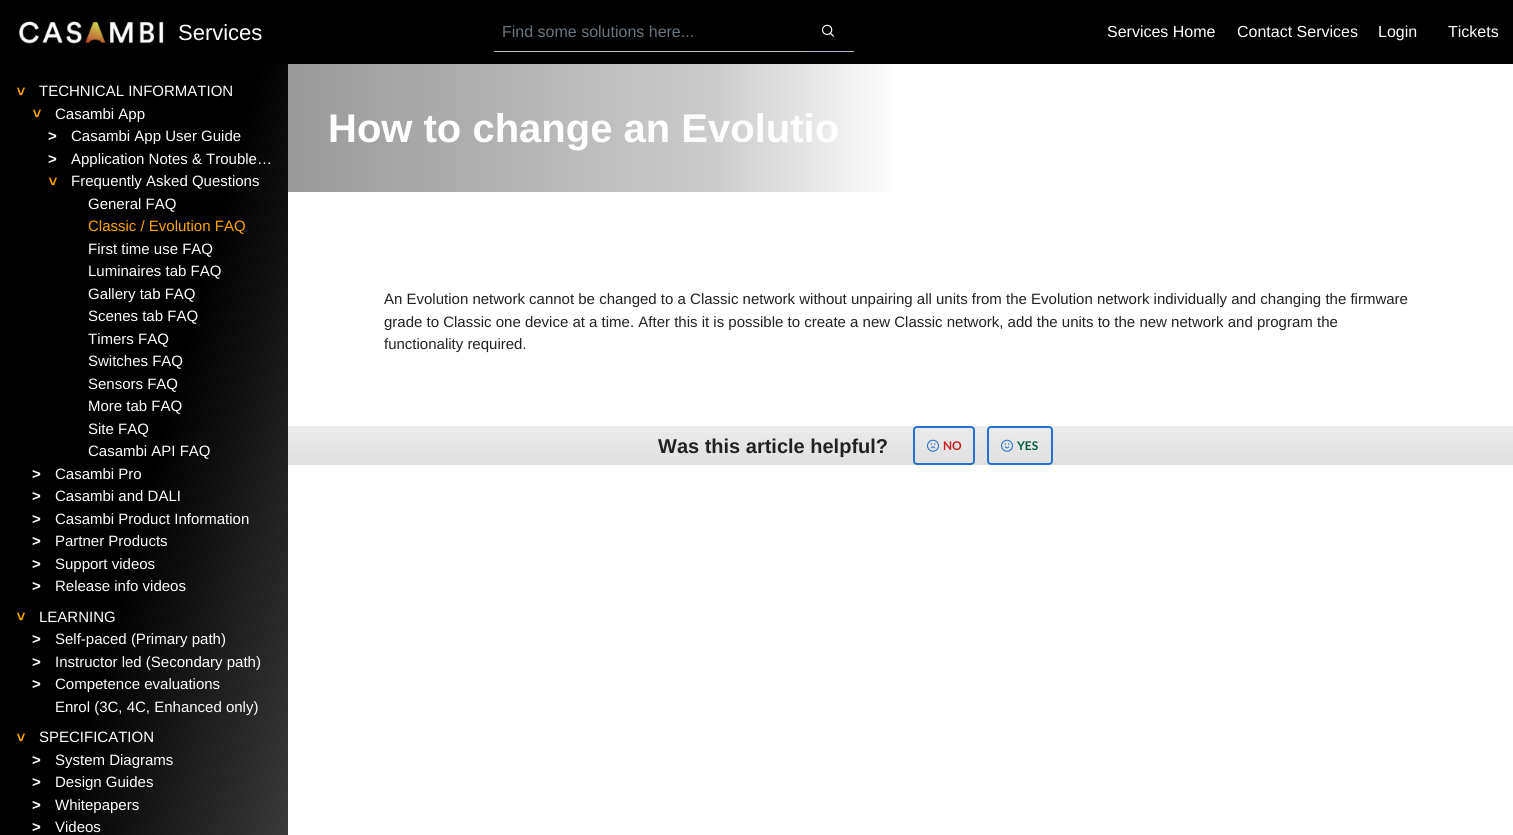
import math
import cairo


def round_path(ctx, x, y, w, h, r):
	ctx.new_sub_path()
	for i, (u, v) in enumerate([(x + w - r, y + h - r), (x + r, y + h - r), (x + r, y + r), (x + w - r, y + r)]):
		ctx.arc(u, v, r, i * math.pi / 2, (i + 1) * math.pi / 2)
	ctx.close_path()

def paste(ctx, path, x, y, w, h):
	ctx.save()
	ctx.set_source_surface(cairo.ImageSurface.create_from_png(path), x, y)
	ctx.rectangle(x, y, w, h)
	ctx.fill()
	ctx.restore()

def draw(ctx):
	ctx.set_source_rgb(1, 1, 1)
	ctx.paint()
	ctx.set_source_rgb(0, 0, 0)
	ctx.rectangle(0, 0, 1513, 64)
	ctx.fill()
	paste(ctx, 'media/1.png', 19, 21, 145, 23)
	ctx.select_font_face('Liberation Sans')
	ctx.set_font_size(22)
	ctx.set_source_rgb(1, 1, 1)
	ctx.move_to(178, 40)
	ctx.show_text('Services')
	ctx.set_source_rgb(0.741, 0.761, 0.773)
	ctx.rectangle(494, 51, 309, 1)
	ctx.fill()
	ctx.set_font_size(16)
	ctx.set_source_rgb(0.424, 0.459, 0.49)
	ctx.move_to(502, 37)
	ctx.show_text('Find some solutions here...')
	ctx.set_source_rgb(0.694, 0.741, 0.784)
	ctx.rectangle(802, 51, 52, 1)
	ctx.fill()
	paste(ctx, 'media/2.png', 822, 24, 12, 13)
	ctx.set_source_rgb(1, 1, 1)
	for x, y, s in [
		(1107, 37, 'Services Home'),
		(1237, 37, 'Contact Services'),
		(1378, 37, 'Login'),
		(1448, 37, 'Tickets'),
	]:
		ctx.move_to(x, y)
		ctx.show_text(s)
	gradient = cairo.LinearGradient(-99, 432, 387, 562)
	gradient.add_color_stop_rgba(0, 0, 0, 0, 1)
	gradient.add_color_stop_rgba(0.5, 0, 0, 0, 1)
	gradient.add_color_stop_rgba(1, 0.251, 0.251, 0.251, 1)
	ctx.set_source(gradient)
	ctx.rectangle(0, 64, 288, 771)
	ctx.fill()
	ctx.select_font_face('Liberation Sans', cairo.FONT_SLANT_NORMAL, cairo.FONT_WEIGHT_BOLD)
	ctx.set_font_size(15)
	ctx.set_source_rgb(1, 0.647, 0)
	ctx.save()
	ctx.translate(16, 87)
	ctx.rotate(90 * math.pi / 180)
	ctx.move_to(0, 0)
	ctx.show_text('>')
	ctx.restore()
	ctx.select_font_face('Liberation Sans')
	ctx.set_source_rgb(1, 1, 1)
	ctx.move_to(39, 96)
	ctx.show_text('TECHNICAL INFORMATION')
	ctx.select_font_face('Liberation Sans', cairo.FONT_SLANT_NORMAL, cairo.FONT_WEIGHT_BOLD)
	ctx.set_source_rgb(1, 0.647, 0)
	ctx.save()
	ctx.translate(32, 109)
	ctx.rotate(90 * math.pi / 180)
	ctx.move_to(0, 0)
	ctx.show_text('>')
	ctx.restore()
	ctx.select_font_face('Liberation Sans')
	ctx.set_source_rgb(1, 1, 1)
	ctx.move_to(55, 119)
	ctx.show_text('Casambi App')
	ctx.select_font_face('Liberation Sans', cairo.FONT_SLANT_NORMAL, cairo.FONT_WEIGHT_BOLD)
	ctx.move_to(48, 141)
	ctx.show_text('>')
	ctx.select_font_face('Liberation Sans')
	ctx.move_to(71, 141)
	ctx.show_text('Casambi App User Guide')
	ctx.select_font_face('Liberation Sans', cairo.FONT_SLANT_NORMAL, cairo.FONT_WEIGHT_BOLD)
	ctx.move_to(48, 164)
	ctx.show_text('>')
	ctx.select_font_face('Liberation Sans')
	ctx.move_to(71, 164)
	ctx.show_text('Application Notes & Trouble…')
	ctx.select_font_face('Liberation Sans', cairo.FONT_SLANT_NORMAL, cairo.FONT_WEIGHT_BOLD)
	ctx.set_source_rgb(1, 0.647, 0)
	ctx.save()
	ctx.translate(48, 177)
	ctx.rotate(90 * math.pi / 180)
	ctx.move_to(0, 0)
	ctx.show_text('>')
	ctx.restore()
	ctx.select_font_face('Liberation Sans')
	ctx.set_source_rgb(1, 1, 1)
	ctx.move_to(71, 186)
	ctx.show_text('Frequently Asked Questions')
	ctx.move_to(88, 209)
	ctx.show_text('General FAQ')
	ctx.set_source_rgb(1, 0.647, 0)
	ctx.move_to(88, 231)
	ctx.show_text('Classic / Evolution FAQ')
	ctx.set_source_rgb(1, 1, 1)
	for x, y, s in [
		(88, 254, 'First time use FAQ'),
		(88, 276, 'Luminaires tab FAQ'),
		(88, 299, 'Gallery tab FAQ'),
		(88, 321, 'Scenes tab FAQ'),
		(88, 344, 'Timers FAQ'),
		(88, 366, 'Switches FAQ'),
		(88, 389, 'Sensors FAQ'),
		(88, 411, 'More tab FAQ'),
		(88, 434, 'Site FAQ'),
		(88, 456, 'Casambi API FAQ'),
	]:
		ctx.move_to(x, y)
		ctx.show_text(s)
	ctx.select_font_face('Liberation Sans', cairo.FONT_SLANT_NORMAL, cairo.FONT_WEIGHT_BOLD)
	ctx.move_to(32, 479)
	ctx.show_text('>')
	ctx.select_font_face('Liberation Sans')
	ctx.move_to(55, 479)
	ctx.show_text('Casambi Pro')
	ctx.select_font_face('Liberation Sans', cairo.FONT_SLANT_NORMAL, cairo.FONT_WEIGHT_BOLD)
	ctx.move_to(32, 501)
	ctx.show_text('>')
	ctx.select_font_face('Liberation Sans')
	ctx.move_to(55, 501)
	ctx.show_text('Casambi and DALI')
	ctx.select_font_face('Liberation Sans', cairo.FONT_SLANT_NORMAL, cairo.FONT_WEIGHT_BOLD)
	ctx.move_to(32, 524)
	ctx.show_text('>')
	ctx.select_font_face('Liberation Sans')
	ctx.move_to(55, 524)
	ctx.show_text('Casambi Product Information')
	ctx.select_font_face('Liberation Sans', cairo.FONT_SLANT_NORMAL, cairo.FONT_WEIGHT_BOLD)
	ctx.move_to(32, 546)
	ctx.show_text('>')
	ctx.select_font_face('Liberation Sans')
	ctx.move_to(55, 546)
	ctx.show_text('Partner Products')
	ctx.select_font_face('Liberation Sans', cairo.FONT_SLANT_NORMAL, cairo.FONT_WEIGHT_BOLD)
	ctx.move_to(32, 569)
	ctx.show_text('>')
	ctx.select_font_face('Liberation Sans')
	ctx.move_to(55, 569)
	ctx.show_text('Support videos')
	ctx.select_font_face('Liberation Sans', cairo.FONT_SLANT_NORMAL, cairo.FONT_WEIGHT_BOLD)
	ctx.move_to(32, 591)
	ctx.show_text('>')
	ctx.select_font_face('Liberation Sans')
	ctx.move_to(55, 591)
	ctx.show_text('Release info videos')
	ctx.select_font_face('Liberation Sans', cairo.FONT_SLANT_NORMAL, cairo.FONT_WEIGHT_BOLD)
	ctx.set_source_rgb(1, 0.647, 0)
	ctx.save()
	ctx.translate(16, 612)
	ctx.rotate(90 * math.pi / 180)
	ctx.move_to(0, 0)
	ctx.show_text('>')
	ctx.restore()
	ctx.select_font_face('Liberation Sans')
	ctx.set_source_rgb(1, 1, 1)
	ctx.move_to(39, 622)
	ctx.show_text('LEARNING')
	ctx.select_font_face('Liberation Sans', cairo.FONT_SLANT_NORMAL, cairo.FONT_WEIGHT_BOLD)
	ctx.move_to(32, 644)
	ctx.show_text('>')
	ctx.select_font_face('Liberation Sans')
	ctx.move_to(55, 644)
	ctx.show_text('Self-paced (Primary path)')
	ctx.select_font_face('Liberation Sans', cairo.FONT_SLANT_NORMAL, cairo.FONT_WEIGHT_BOLD)
	ctx.move_to(32, 667)
	ctx.show_text('>')
	ctx.select_font_face('Liberation Sans')
	ctx.move_to(55, 667)
	ctx.show_text('Instructor led (Secondary path)')
	ctx.select_font_face('Liberation Sans', cairo.FONT_SLANT_NORMAL, cairo.FONT_WEIGHT_BOLD)
	ctx.move_to(32, 689)
	ctx.show_text('>')
	ctx.select_font_face('Liberation Sans')
	ctx.move_to(55, 689)
	ctx.show_text('Competence evaluations')
	ctx.move_to(55, 712)
	ctx.show_text('Enrol (3C, 4C, Enhanced only)')
	ctx.select_font_face('Liberation Sans', cairo.FONT_SLANT_NORMAL, cairo.FONT_WEIGHT_BOLD)
	ctx.set_source_rgb(1, 0.647, 0)
	ctx.save()
	ctx.translate(16, 733)
	ctx.rotate(90 * math.pi / 180)
	ctx.move_to(0, 0)
	ctx.show_text('>')
	ctx.restore()
	ctx.select_font_face('Liberation Sans')
	ctx.set_source_rgb(1, 1, 1)
	ctx.move_to(39, 742)
	ctx.show_text('SPECIFICATION')
	ctx.select_font_face('Liberation Sans', cairo.FONT_SLANT_NORMAL, cairo.FONT_WEIGHT_BOLD)
	ctx.move_to(32, 765)
	ctx.show_text('>')
	ctx.select_font_face('Liberation Sans')
	ctx.move_to(55, 765)
	ctx.show_text('System Diagrams')
	ctx.select_font_face('Liberation Sans', cairo.FONT_SLANT_NORMAL, cairo.FONT_WEIGHT_BOLD)
	ctx.move_to(32, 787)
	ctx.show_text('>')
	ctx.select_font_face('Liberation Sans')
	ctx.move_to(55, 787)
	ctx.show_text('Design Guides')
	ctx.select_font_face('Liberation Sans', cairo.FONT_SLANT_NORMAL, cairo.FONT_WEIGHT_BOLD)
	ctx.move_to(32, 810)
	ctx.show_text('>')
	ctx.select_font_face('Liberation Sans')
	ctx.move_to(55, 810)
	ctx.show_text('Whitepapers')
	ctx.select_font_face('Liberation Sans', cairo.FONT_SLANT_NORMAL, cairo.FONT_WEIGHT_BOLD)
	ctx.move_to(32, 832)
	ctx.show_text('>')
	ctx.select_font_face('Liberation Sans')
	ctx.move_to(55, 832)
	ctx.show_text('Videos')
	gradient = cairo.LinearGradient(288, 128, 1513, 128)
	gradient.add_color_stop_rgba(0, 0.6, 0.6, 0.6, 1)
	gradient.add_color_stop_rgba(0.35, 0.8, 0.8, 0.8, 1)
	gradient.add_color_stop_rgba(0.5, 1, 1, 1, 1)
	gradient.add_color_stop_rgba(1, 1, 1, 1, 1)
	ctx.set_source(gradient)
	ctx.rectangle(288, 64, 604, 128)
	ctx.fill()
	ctx.select_font_face('Liberation Sans', cairo.FONT_SLANT_NORMAL, cairo.FONT_WEIGHT_BOLD)
	ctx.set_font_size(40)
	ctx.set_source_rgb(1, 1, 1)
	ctx.move_to(328, 142)
	ctx.show_text('How to change an Evolutio')
	ctx.select_font_face('Liberation Sans')
	ctx.set_font_size(15)
	ctx.set_source_rgb(0.133, 0.133, 0.133)
	for x, y, s in [
		(384, 304, 'An Evolution network cannot be changed to a Classic network without unpairing all units from the Evolution network individually and changing the firmware'),
		(384, 327, 'grade to Classic one device at a time. After this it is possible to create a new Classic network, add the units to the new network and program the'),
		(384, 349, 'functionality required.'),
	]:
		ctx.move_to(x, y)
		ctx.show_text(s)
	gradient = cairo.LinearGradient(901, 426, 901, 465)
	gradient.add_color_stop_rgba(0, 0.922, 0.922, 0.922, 1)
	gradient.add_color_stop_rgba(1, 0.878, 0.878, 0.878, 1)
	ctx.set_source(gradient)
	ctx.rectangle(288, 426, 1225, 39)
	ctx.fill()
	ctx.select_font_face('Liberation Sans', cairo.FONT_SLANT_NORMAL, cairo.FONT_WEIGHT_BOLD)
	ctx.set_font_size(20)
	ctx.set_source_rgb(0.133, 0.133, 0.133)
	ctx.move_to(658, 453)
	ctx.show_text('Was this article helpful?')
	round_path(ctx, 914, 427, 60, 37, 3)
	ctx.set_source_rgb(0.153, 0.435, 0.816)
	ctx.stroke()
	paste(ctx, 'media/3.png', 927, 439, 12, 13)
	ctx.select_font_face('Lato', cairo.FONT_SLANT_NORMAL, cairo.FONT_WEIGHT_BOLD)
	ctx.set_font_size(12)
	ctx.set_source_rgb(0.784, 0.129, 0.141)
	ctx.move_to(943, 450)
	ctx.show_text('NO')
	round_path(ctx, 988, 427, 64, 37, 3)
	ctx.set_source_rgb(0.153, 0.435, 0.816)
	ctx.stroke()
	paste(ctx, 'media/4.png', 1001, 439, 12, 13)
	ctx.set_source_rgb(0, 0.361, 0.247)
	ctx.move_to(1017, 450)
	ctx.show_text('YES')


surface = cairo.ImageSurface(cairo.FORMAT_RGB24, 1513, 835)
ctx = cairo.Context(surface)
options = cairo.FontOptions()
options.set_hint_metrics(cairo.HINT_METRICS_OFF)
options.set_hint_style(cairo.HINT_STYLE_NONE)
ctx.set_font_options(options)
ctx.set_miter_limit(4)
draw(ctx)
surface.write_to_png('image.png')
